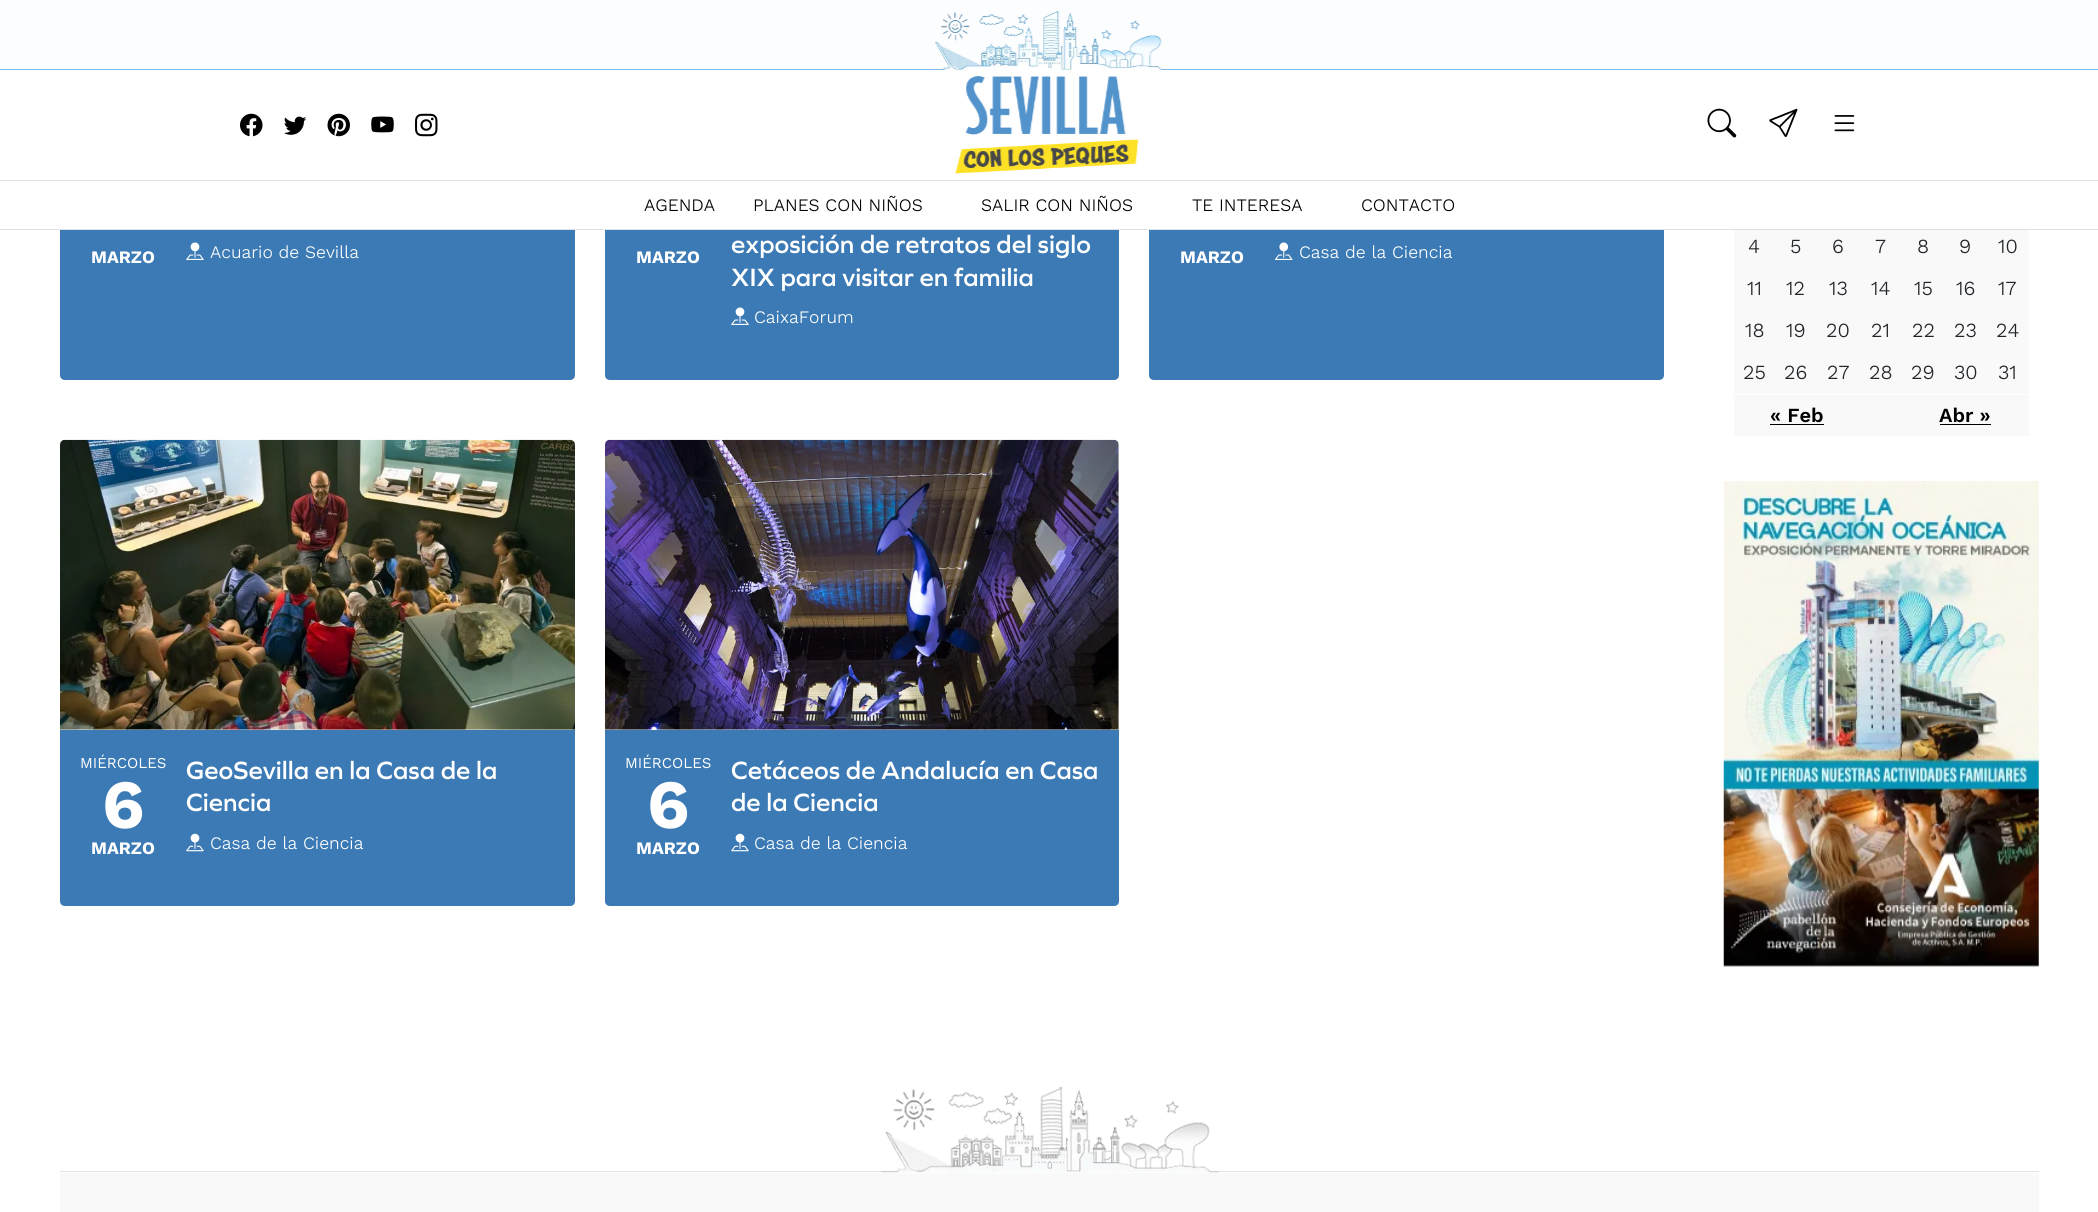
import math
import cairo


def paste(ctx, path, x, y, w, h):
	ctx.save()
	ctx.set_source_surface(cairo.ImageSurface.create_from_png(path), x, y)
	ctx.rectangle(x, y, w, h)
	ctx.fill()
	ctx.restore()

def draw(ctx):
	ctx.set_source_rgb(1, 1, 1)
	ctx.paint()
	ctx.set_source_rgb(0.984, 0.992, 0.996)
	ctx.rectangle(0, 0, 2098, 69)
	ctx.fill()
	ctx.set_source_rgb(0.494, 0.729, 0.941)
	ctx.rectangle(0, 69, 2098, 1)
	ctx.fill()
	paste(ctx, 'media/1.png', 932, 11, 236, 59)
	ctx.set_source_rgb(0.231, 0.478, 0.71)
	ctx.new_path()
	ctx.move_to(60, 139)
	ctx.line_to(575, 139)
	ctx.line_to(575, 375)
	ctx.curve_to(575, 378, 573, 380, 570, 380)
	ctx.line_to(65, 380)
	ctx.curve_to(62, 380, 60, 378, 60, 375)
	ctx.close_path()
	ctx.fill()
	ctx.new_path()
	ctx.move_to(605, 139)
	ctx.line_to(1119, 139)
	ctx.line_to(1119, 375)
	ctx.curve_to(1119, 378, 1117, 380, 1114, 380)
	ctx.line_to(610, 380)
	ctx.curve_to(607, 380, 605, 378, 605, 375)
	ctx.close_path()
	ctx.fill()
	ctx.new_path()
	ctx.move_to(1149, 139)
	ctx.line_to(1664, 139)
	ctx.line_to(1664, 375)
	ctx.curve_to(1664, 378, 1662, 380, 1659, 380)
	ctx.line_to(1154, 380)
	ctx.curve_to(1151, 380, 1149, 378, 1149, 375)
	ctx.close_path()
	ctx.fill()
	ctx.set_source_rgb(1, 1, 1)
	ctx.rectangle(60, 139, 1604, 90)
	ctx.fill()
	ctx.set_source_rgb(0.871, 0.886, 0.902)
	ctx.rectangle(0, 180, 2098, 1)
	ctx.fill()
	paste(ctx, 'media/2.png', 240, 113, 23, 24)
	paste(ctx, 'media/3.png', 284, 116, 23, 19)
	paste(ctx, 'media/4.png', 327, 113, 23, 24)
	paste(ctx, 'media/5.png', 371, 116, 23, 17)
	paste(ctx, 'media/6.png', 415, 113, 23, 24)
	paste(ctx, 'media/7.png', 955, 76, 184, 98)
	paste(ctx, 'media/8.png', 1707, 108, 30, 30)
	paste(ctx, 'media/9.png', 1769, 108, 29, 29)
	paste(ctx, 'media/10.png', 1834, 115, 21, 17)
	ctx.rectangle(0, 229, 2098, 1)
	ctx.fill()
	ctx.select_font_face('Work Sans Light')
	ctx.set_font_size(17.5)
	ctx.set_source_rgb(0, 0, 0)
	for x, y, s in [
		(644, 211, 'AGENDA'),
		(753, 211, 'PLANES CON NIÑOS'),
		(981, 211, 'SALIR CON NIÑOS'),
		(1192, 211, 'TE INTERESA'),
		(1361, 211, 'CONTACTO'),
	]:
		ctx.move_to(x, y)
		ctx.show_text(s)
	ctx.select_font_face('Work Sans', cairo.FONT_SLANT_NORMAL, cairo.FONT_WEIGHT_BOLD)
	ctx.set_source_rgb(1, 1, 1)
	ctx.move_to(91, 263)
	ctx.show_text('MARZO')
	paste(ctx, 'media/11.png', 186, 242, 18, 18)
	ctx.select_font_face('Work Sans Light')
	ctx.move_to(210, 258)
	ctx.show_text('Acuario de Sevilla')
	ctx.select_font_face('Work Sans', cairo.FONT_SLANT_NORMAL, cairo.FONT_WEIGHT_BOLD)
	ctx.move_to(636, 263)
	ctx.show_text('MARZO')
	ctx.select_font_face('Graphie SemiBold')
	ctx.set_font_size(26)
	ctx.move_to(731, 253)
	ctx.show_text('exposición de retratos del siglo')
	ctx.move_to(731, 286)
	ctx.show_text('XIX para visitar en familia')
	paste(ctx, 'media/11.png', 731, 307, 18, 18)
	ctx.select_font_face('Work Sans Light')
	ctx.set_font_size(17.5)
	ctx.move_to(754, 323)
	ctx.show_text('CaixaForum')
	ctx.select_font_face('Work Sans', cairo.FONT_SLANT_NORMAL, cairo.FONT_WEIGHT_BOLD)
	ctx.move_to(1180, 263)
	ctx.show_text('MARZO')
	paste(ctx, 'media/12.png', 1275, 242, 18, 18)
	ctx.select_font_face('Work Sans Light')
	ctx.move_to(1299, 258)
	ctx.show_text('Casa de la Ciencia')
	paste(ctx, 'media/13.png', 60, 439, 515, 291)
	ctx.set_source_rgb(0.231, 0.478, 0.71)
	ctx.new_path()
	ctx.move_to(60, 730)
	ctx.line_to(575, 730)
	ctx.line_to(575, 901)
	ctx.curve_to(575, 904, 573, 906, 570, 906)
	ctx.line_to(65, 906)
	ctx.curve_to(62, 906, 60, 904, 60, 901)
	ctx.close_path()
	ctx.fill()
	ctx.select_font_face('Work Sans')
	ctx.set_font_size(15)
	ctx.set_source_rgb(1, 1, 1)
	ctx.move_to(80, 768)
	ctx.show_text('MIÉRCOLES')
	ctx.select_font_face('Work Sans', cairo.FONT_SLANT_NORMAL, cairo.FONT_WEIGHT_BOLD)
	ctx.set_font_size(69)
	ctx.move_to(102, 828)
	ctx.show_text('6')
	ctx.set_font_size(17.5)
	ctx.move_to(91, 854)
	ctx.show_text('MARZO')
	ctx.select_font_face('Graphie SemiBold')
	ctx.set_font_size(26)
	ctx.move_to(186, 779)
	ctx.show_text('GeoSevilla en la Casa de la')
	ctx.move_to(186, 811)
	ctx.show_text('Ciencia')
	paste(ctx, 'media/14.png', 186, 833, 18, 19)
	ctx.select_font_face('Work Sans Light')
	ctx.set_font_size(17.5)
	ctx.move_to(210, 849)
	ctx.show_text('Casa de la Ciencia')
	paste(ctx, 'media/15.png', 605, 439, 514, 291)
	ctx.set_source_rgb(0.231, 0.478, 0.71)
	ctx.new_path()
	ctx.move_to(605, 730)
	ctx.line_to(1119, 730)
	ctx.line_to(1119, 901)
	ctx.curve_to(1119, 904, 1117, 906, 1114, 906)
	ctx.line_to(610, 906)
	ctx.curve_to(607, 906, 605, 904, 605, 901)
	ctx.close_path()
	ctx.fill()
	ctx.select_font_face('Work Sans')
	ctx.set_font_size(15)
	ctx.set_source_rgb(1, 1, 1)
	ctx.move_to(625, 768)
	ctx.show_text('MIÉRCOLES')
	ctx.select_font_face('Work Sans', cairo.FONT_SLANT_NORMAL, cairo.FONT_WEIGHT_BOLD)
	ctx.set_font_size(69)
	ctx.move_to(647, 828)
	ctx.show_text('6')
	ctx.set_font_size(17.5)
	ctx.move_to(636, 854)
	ctx.show_text('MARZO')
	ctx.select_font_face('Graphie SemiBold')
	ctx.set_font_size(26)
	ctx.move_to(731, 779)
	ctx.show_text('Cetáceos de Andalucía en Casa')
	ctx.move_to(731, 811)
	ctx.show_text('de la Ciencia')
	paste(ctx, 'media/14.png', 731, 833, 18, 19)
	ctx.select_font_face('Work Sans Light')
	ctx.set_font_size(17.5)
	ctx.move_to(754, 849)
	ctx.show_text('Casa de la Ciencia')
	ctx.set_source_rgb(0.973, 0.976, 0.98)
	ctx.rectangle(1734, 230, 295, 206)
	ctx.fill()
	ctx.set_font_size(20)
	ctx.set_source_rgb(0.129, 0.145, 0.161)
	for x, y, s in [
		(1748, 253, '4'),
		(1790, 253, '5'),
		(1832, 253, '6'),
		(1875, 253, '7'),
		(1917, 253, '8'),
		(1959, 253, '9'),
		(1998, 253, '10'),
		(1747, 295, '11'),
		(1786, 295, '12'),
		(1829, 295, '13'),
		(1871, 295, '14'),
		(1914, 295, '15'),
		(1956, 295, '16'),
		(1998, 295, '17'),
		(1745, 337, '18'),
		(1786, 337, '19'),
		(1826, 337, '20'),
		(1871, 337, '21'),
		(1912, 337, '22'),
		(1954, 337, '23'),
		(1996, 337, '24'),
		(1743, 379, '25'),
		(1784, 379, '26'),
		(1827, 379, '27'),
		(1869, 379, '28'),
		(1911, 379, '29'),
		(1954, 379, '30'),
		(1998, 379, '31'),
	]:
		ctx.move_to(x, y)
		ctx.show_text(s)
	ctx.select_font_face('Work Sans SemiBold')
	ctx.set_source_rgb(0, 0, 0)
	ctx.move_to(1770, 422)
	ctx.show_text('« Feb')
	ctx.rectangle(1770, 424, 54, 1)
	ctx.fill()
	ctx.set_source_rgb(1, 1, 1)
	ctx.rectangle(1734, 394, 296, 1)
	ctx.fill()
	ctx.set_source_rgb(0, 0, 0)
	ctx.move_to(1939, 422)
	ctx.show_text('Abr »')
	ctx.rectangle(1940, 424, 51, 1)
	ctx.fill()
	paste(ctx, 'media/16.png', 1723, 481, 316, 486)
	ctx.set_source_rgb(0.89, 0.89, 0.89)
	ctx.rectangle(60, 1171, 1979, 1)
	ctx.fill()
	paste(ctx, 'media/17.png', 881, 1087, 338, 86)
	ctx.set_source_rgb(0.973, 0.976, 0.98)
	ctx.rectangle(60, 1173, 1979, 39)
	ctx.fill()


surface = cairo.ImageSurface(cairo.FORMAT_RGB24, 2098, 1212)
ctx = cairo.Context(surface)
options = cairo.FontOptions()
options.set_hint_metrics(cairo.HINT_METRICS_OFF)
options.set_hint_style(cairo.HINT_STYLE_NONE)
ctx.set_font_options(options)
ctx.set_miter_limit(4)
draw(ctx)
surface.write_to_png('image.png')
